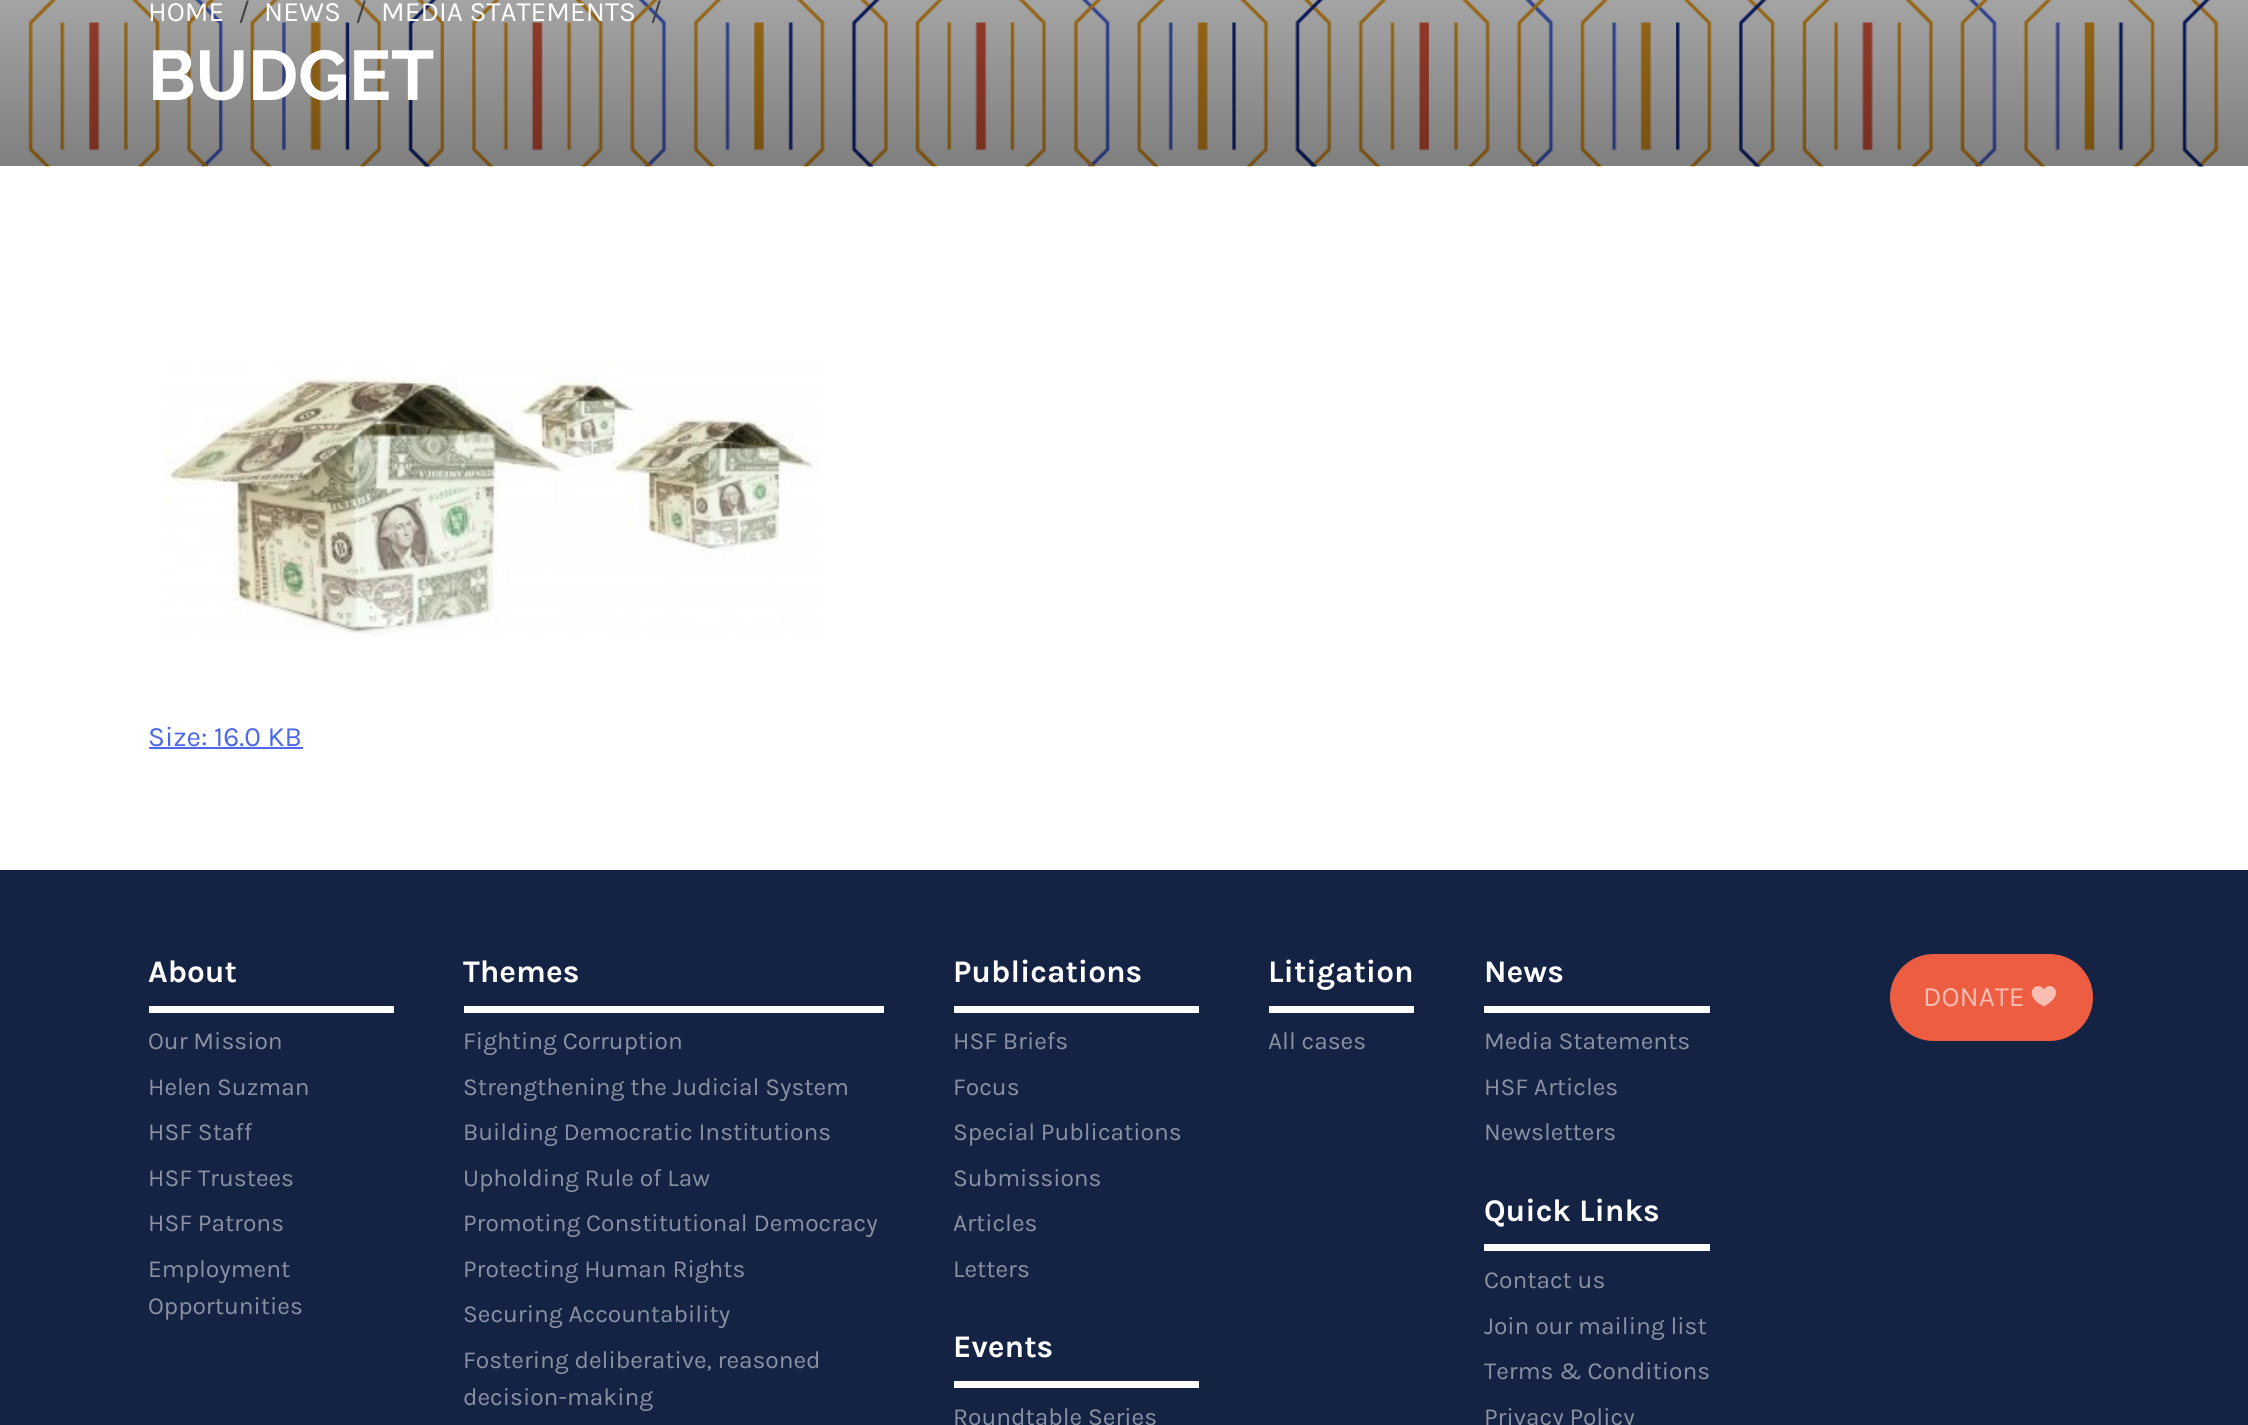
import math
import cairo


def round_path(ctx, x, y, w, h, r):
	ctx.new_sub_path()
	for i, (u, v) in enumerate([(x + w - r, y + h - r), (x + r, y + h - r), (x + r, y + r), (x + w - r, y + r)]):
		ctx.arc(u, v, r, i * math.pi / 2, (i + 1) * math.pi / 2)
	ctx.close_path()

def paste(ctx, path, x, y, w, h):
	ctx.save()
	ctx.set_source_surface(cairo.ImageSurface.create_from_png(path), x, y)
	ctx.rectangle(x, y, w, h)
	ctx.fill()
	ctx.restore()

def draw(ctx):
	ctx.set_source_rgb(1, 1, 1)
	ctx.paint()
	paste(ctx, 'media/1.png', 28, 0, 2191, 167)
	gradient = cairo.LinearGradient(1124, -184, 1124, 166)
	gradient.add_color_stop_rgba(0, 0, 0, 0, 0.2)
	gradient.add_color_stop_rgba(1, 0, 0, 0, 0.5)
	ctx.set_source(gradient)
	ctx.rectangle(0, 0, 2248, 166)
	ctx.fill()
	ctx.select_font_face('Karla')
	ctx.set_font_size(28)
	ctx.set_source_rgb(1, 1, 1)
	ctx.move_to(148, 21)
	ctx.show_text('HOME')
	ctx.set_source_rgb(0.255, 0.267, 0.278)
	ctx.move_to(238, 21)
	ctx.show_text('/')
	ctx.set_source_rgb(1, 1, 1)
	ctx.move_to(264, 21)
	ctx.show_text('NEWS')
	ctx.set_source_rgb(0.255, 0.267, 0.278)
	ctx.move_to(355, 21)
	ctx.show_text('/')
	ctx.set_source_rgb(1, 1, 1)
	ctx.move_to(381, 21)
	ctx.show_text('MEDIA STATEMENTS')
	ctx.set_source_rgb(0.255, 0.267, 0.278)
	ctx.move_to(650, 21)
	ctx.show_text('/')
	ctx.select_font_face('Raleway', cairo.FONT_SLANT_NORMAL, cairo.FONT_WEIGHT_BOLD)
	ctx.set_font_size(70)
	ctx.set_source_rgb(1, 1, 1)
	ctx.move_to(148, 100)
	ctx.show_text('BUDGET')
	paste(ctx, 'media/2.png', 163, 363, 658, 274)
	ctx.select_font_face('Karla')
	ctx.set_font_size(28)
	ctx.set_source_rgb(0.302, 0.408, 0.91)
	ctx.move_to(148, 746)
	ctx.show_text('Size: 16.0 KB')
	ctx.rectangle(149, 747, 154, 2)
	ctx.fill()
	ctx.set_source_rgb(0.082, 0.133, 0.267)
	ctx.rectangle(0, 870, 2248, 555)
	ctx.fill()
	ctx.select_font_face('Karla', cairo.FONT_SLANT_NORMAL, cairo.FONT_WEIGHT_BOLD)
	ctx.set_font_size(31.5)
	ctx.set_source_rgb(1, 1, 1)
	ctx.move_to(148, 982)
	ctx.show_text('About')
	ctx.rectangle(149, 1006, 245, 7)
	ctx.fill()
	ctx.select_font_face('Karla')
	ctx.set_font_size(24.5)
	ctx.set_source_rgb(0.541, 0.569, 0.635)
	for x, y, s in [
		(148, 1049, 'Our Mission'),
		(148, 1095, 'Helen Suzman'),
		(148, 1140, 'HSF Staff'),
		(148, 1186, 'HSF Trustees'),
		(148, 1231, 'HSF Patrons'),
		(148, 1277, 'Employment'),
		(148, 1314, 'Opportunities'),
	]:
		ctx.move_to(x, y)
		ctx.show_text(s)
	ctx.select_font_face('Karla', cairo.FONT_SLANT_NORMAL, cairo.FONT_WEIGHT_BOLD)
	ctx.set_font_size(31.5)
	ctx.set_source_rgb(1, 1, 1)
	ctx.move_to(463, 982)
	ctx.show_text('Themes')
	ctx.rectangle(464, 1006, 420, 7)
	ctx.fill()
	ctx.select_font_face('Karla')
	ctx.set_font_size(24.5)
	ctx.set_source_rgb(0.541, 0.569, 0.635)
	for x, y, s in [
		(463, 1049, 'Fighting Corruption'),
		(463, 1095, 'Strengthening the Judicial System'),
		(463, 1140, 'Building Democratic Institutions'),
		(463, 1186, 'Upholding Rule of Law'),
		(463, 1231, 'Promoting Constitutional Democracy'),
		(463, 1277, 'Protecting Human Rights'),
		(463, 1322, 'Securing Accountability'),
		(463, 1368, 'Fostering deliberative, reasoned'),
		(463, 1405, 'decision-making'),
	]:
		ctx.move_to(x, y)
		ctx.show_text(s)
	ctx.select_font_face('Karla', cairo.FONT_SLANT_NORMAL, cairo.FONT_WEIGHT_BOLD)
	ctx.set_font_size(31.5)
	ctx.set_source_rgb(1, 1, 1)
	ctx.move_to(953, 982)
	ctx.show_text('Publications')
	ctx.rectangle(954, 1006, 245, 7)
	ctx.fill()
	ctx.select_font_face('Karla')
	ctx.set_font_size(24.5)
	ctx.set_source_rgb(0.541, 0.569, 0.635)
	for x, y, s in [
		(953, 1049, 'HSF Briefs'),
		(953, 1095, 'Focus'),
		(953, 1140, 'Special Publications'),
		(953, 1186, 'Submissions'),
		(953, 1231, 'Articles'),
		(953, 1277, 'Letters'),
	]:
		ctx.move_to(x, y)
		ctx.show_text(s)
	ctx.select_font_face('Karla', cairo.FONT_SLANT_NORMAL, cairo.FONT_WEIGHT_BOLD)
	ctx.set_font_size(31.5)
	ctx.set_source_rgb(1, 1, 1)
	ctx.move_to(953, 1357)
	ctx.show_text('Events')
	ctx.rectangle(954, 1381, 245, 7)
	ctx.fill()
	ctx.select_font_face('Karla')
	ctx.set_font_size(24.5)
	ctx.set_source_rgb(0.541, 0.569, 0.635)
	ctx.move_to(953, 1425)
	ctx.show_text('Roundtable Series')
	ctx.select_font_face('Karla', cairo.FONT_SLANT_NORMAL, cairo.FONT_WEIGHT_BOLD)
	ctx.set_font_size(31.5)
	ctx.set_source_rgb(1, 1, 1)
	ctx.move_to(1268, 982)
	ctx.show_text('Litigation')
	ctx.rectangle(1269, 1006, 145, 7)
	ctx.fill()
	ctx.select_font_face('Karla')
	ctx.set_font_size(24.5)
	ctx.set_source_rgb(0.541, 0.569, 0.635)
	ctx.move_to(1268, 1049)
	ctx.show_text('All cases')
	ctx.select_font_face('Karla', cairo.FONT_SLANT_NORMAL, cairo.FONT_WEIGHT_BOLD)
	ctx.set_font_size(31.5)
	ctx.set_source_rgb(1, 1, 1)
	ctx.move_to(1484, 982)
	ctx.show_text('News')
	ctx.rectangle(1484, 1006, 226, 7)
	ctx.fill()
	ctx.select_font_face('Karla')
	ctx.set_font_size(24.5)
	ctx.set_source_rgb(0.541, 0.569, 0.635)
	for x, y, s in [
		(1484, 1049, 'Media Statements'),
		(1484, 1095, 'HSF Articles'),
		(1484, 1140, 'Newsletters'),
	]:
		ctx.move_to(x, y)
		ctx.show_text(s)
	ctx.select_font_face('Karla', cairo.FONT_SLANT_NORMAL, cairo.FONT_WEIGHT_BOLD)
	ctx.set_font_size(31.5)
	ctx.set_source_rgb(1, 1, 1)
	ctx.move_to(1484, 1221)
	ctx.show_text('Quick Links')
	ctx.rectangle(1484, 1244, 226, 7)
	ctx.fill()
	ctx.select_font_face('Karla')
	ctx.set_font_size(24.5)
	ctx.set_source_rgb(0.541, 0.569, 0.635)
	for x, y, s in [
		(1484, 1288, 'Contact us'),
		(1484, 1334, 'Join our mailing list'),
		(1484, 1379, 'Terms & Conditions'),
		(1484, 1425, 'Privacy Policy'),
	]:
		ctx.move_to(x, y)
		ctx.show_text(s)
	ctx.set_source_rgb(0.929, 0.365, 0.255)
	round_path(ctx, 1890, 954, 203, 87, 43.5)
	ctx.fill()
	ctx.set_font_size(28)
	ctx.set_source_rgb(0.973, 0.745, 0.702)
	ctx.move_to(1923, 1006)
	ctx.show_text('DONATE')
	ctx.new_path()
	ctx.move_to(2044, 989.5)
	ctx.curve_to(2049, 980.5, 2064.5, 990.5, 2050, 1002.5)
	ctx.line_to(2044, 1006.5)
	ctx.line_to(2038, 1003)
	ctx.curve_to(2023.5, 991, 2038, 980.5, 2044, 989.5)
	ctx.close_path()
	ctx.fill()


surface = cairo.ImageSurface(cairo.FORMAT_RGB24, 2248, 1425)
ctx = cairo.Context(surface)
options = cairo.FontOptions()
options.set_hint_metrics(cairo.HINT_METRICS_OFF)
options.set_hint_style(cairo.HINT_STYLE_NONE)
ctx.set_font_options(options)
ctx.set_miter_limit(4)
draw(ctx)
surface.write_to_png('image.png')
